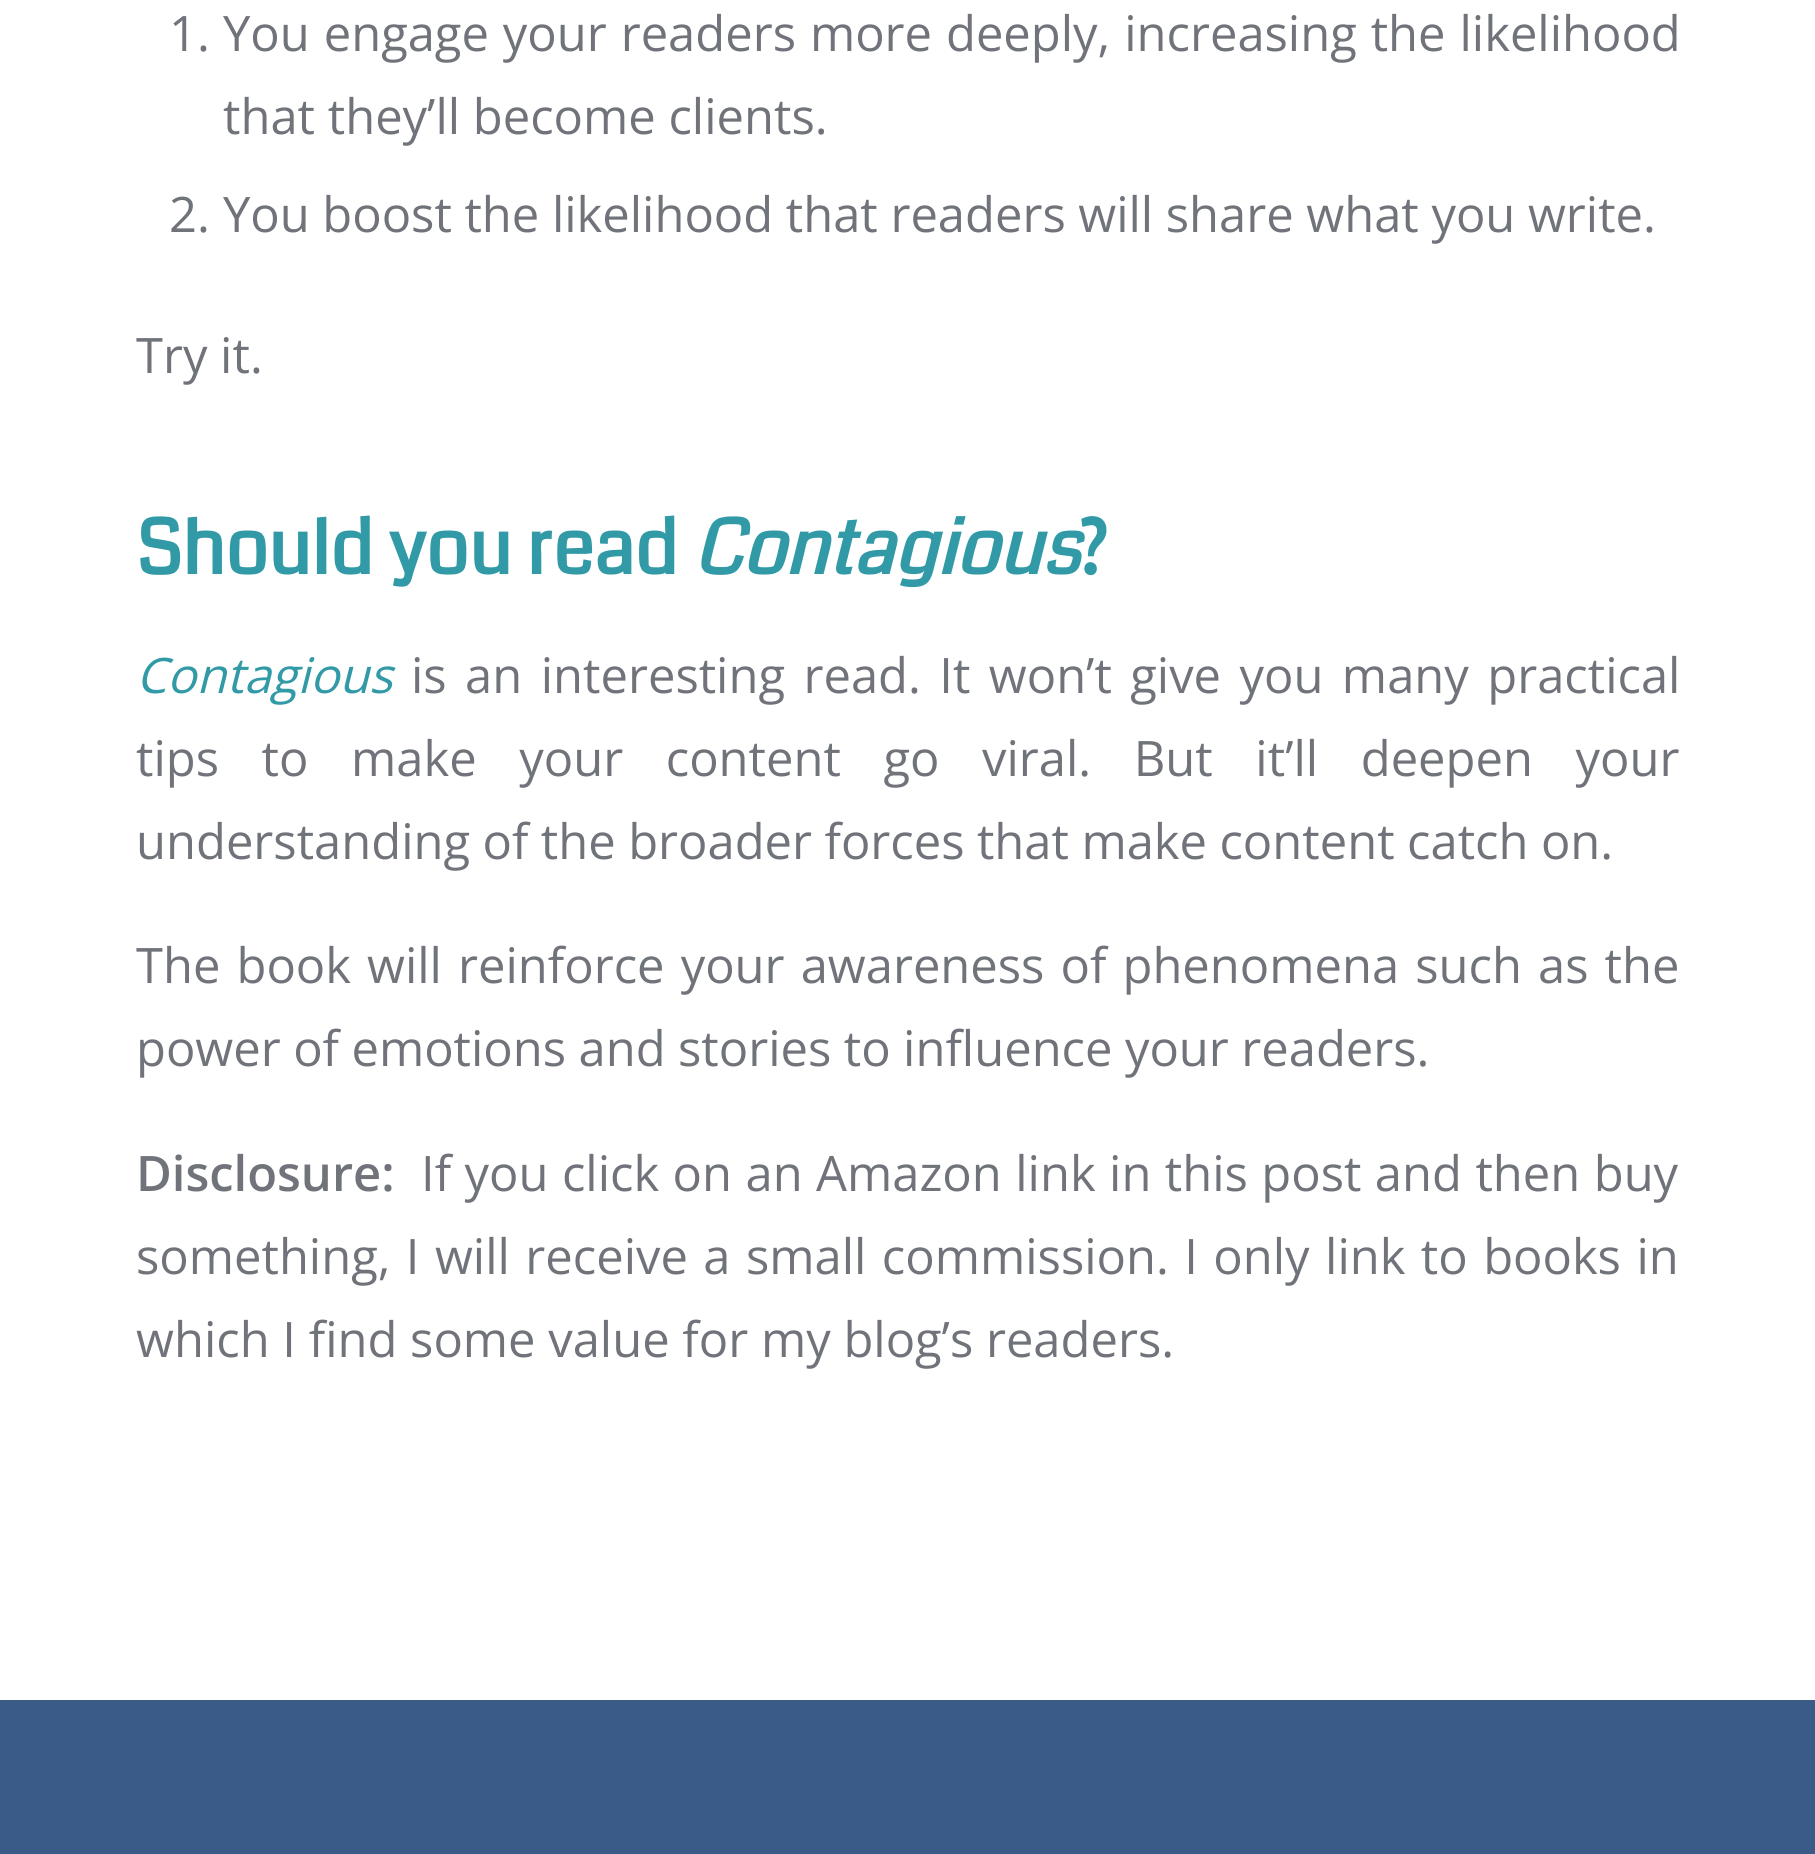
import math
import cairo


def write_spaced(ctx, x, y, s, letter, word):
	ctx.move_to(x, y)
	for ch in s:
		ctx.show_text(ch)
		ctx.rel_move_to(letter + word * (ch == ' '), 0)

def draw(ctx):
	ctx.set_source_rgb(1, 1, 1)
	ctx.paint()
	ctx.select_font_face('Open Sans')
	ctx.set_font_size(48.9)
	ctx.set_source_rgb(0.439, 0.451, 0.478)
	ctx.move_to(169, 51)
	ctx.show_text('1.')
	write_spaced(ctx, 223, 51, 'You engage your readers more deeply, increasing the likelihood', 0, 1.25)
	ctx.move_to(223, 134)
	ctx.show_text('that they’ll become clients.')
	ctx.move_to(169, 232)
	ctx.show_text('2.')
	write_spaced(ctx, 223, 232, 'You boost the likelihood that readers will share what you write.', 0, -0.1)
	ctx.move_to(136, 373)
	ctx.show_text('Try it.')
	ctx.select_font_face('Coda', cairo.FONT_SLANT_NORMAL, cairo.FONT_WEIGHT_BOLD)
	ctx.set_font_size(75)
	ctx.set_source_rgb(0.196, 0.604, 0.651)
	ctx.move_to(136, 574)
	ctx.show_text('Should you read')
	ctx.select_font_face('Coda', cairo.FONT_SLANT_ITALIC, cairo.FONT_WEIGHT_BOLD)
	ctx.move_to(693, 574)
	ctx.show_text('Contagious')
	ctx.select_font_face('Coda', cairo.FONT_SLANT_NORMAL, cairo.FONT_WEIGHT_BOLD)
	ctx.move_to(1079, 574)
	ctx.show_text('?')
	ctx.select_font_face('Open Sans', cairo.FONT_SLANT_ITALIC)
	ctx.set_font_size(48.9)
	ctx.move_to(136, 693)
	ctx.show_text('Contagious')
	ctx.select_font_face('Open Sans')
	ctx.set_source_rgb(0.439, 0.451, 0.478)
	write_spaced(ctx, 411, 693, 'is an interesting read. It won’t give you many practical', 0, 5.75)
	write_spaced(ctx, 136, 776, 'tips to make your content go viral. But it’ll deepen your', 0, 29.9)
	write_spaced(ctx, 136, 859, 'understanding of the broader forces that make content catch on.', 0, -0.25)
	write_spaced(ctx, 136, 983, 'The book will reinforce your awareness of phenomena such as the', 0, 3.4)
	write_spaced(ctx, 136, 1066, 'power of emotions and stories to influence your readers.', 0, -0.25)
	ctx.select_font_face('Open Sans SemiBold')
	ctx.move_to(136, 1191)
	ctx.show_text('Disclosure:')
	ctx.select_font_face('Open Sans')
	write_spaced(ctx, 421, 1191, 'If you click on an Amazon link in this post and then buy', 0, 0.75)
	write_spaced(ctx, 136, 1274, 'something, I will receive a small commission. I only link to books in', 0, 2.75)
	ctx.move_to(136, 1357)
	ctx.show_text('which I find some value for my blog’s readers.')
	ctx.set_source_rgb(0.227, 0.357, 0.533)
	ctx.rectangle(0, 1700, 1815, 154)
	ctx.fill()


surface = cairo.ImageSurface(cairo.FORMAT_RGB24, 1815, 1854)
ctx = cairo.Context(surface)
options = cairo.FontOptions()
options.set_hint_metrics(cairo.HINT_METRICS_OFF)
options.set_hint_style(cairo.HINT_STYLE_NONE)
ctx.set_font_options(options)
ctx.set_miter_limit(4)
draw(ctx)
surface.write_to_png('image.png')
